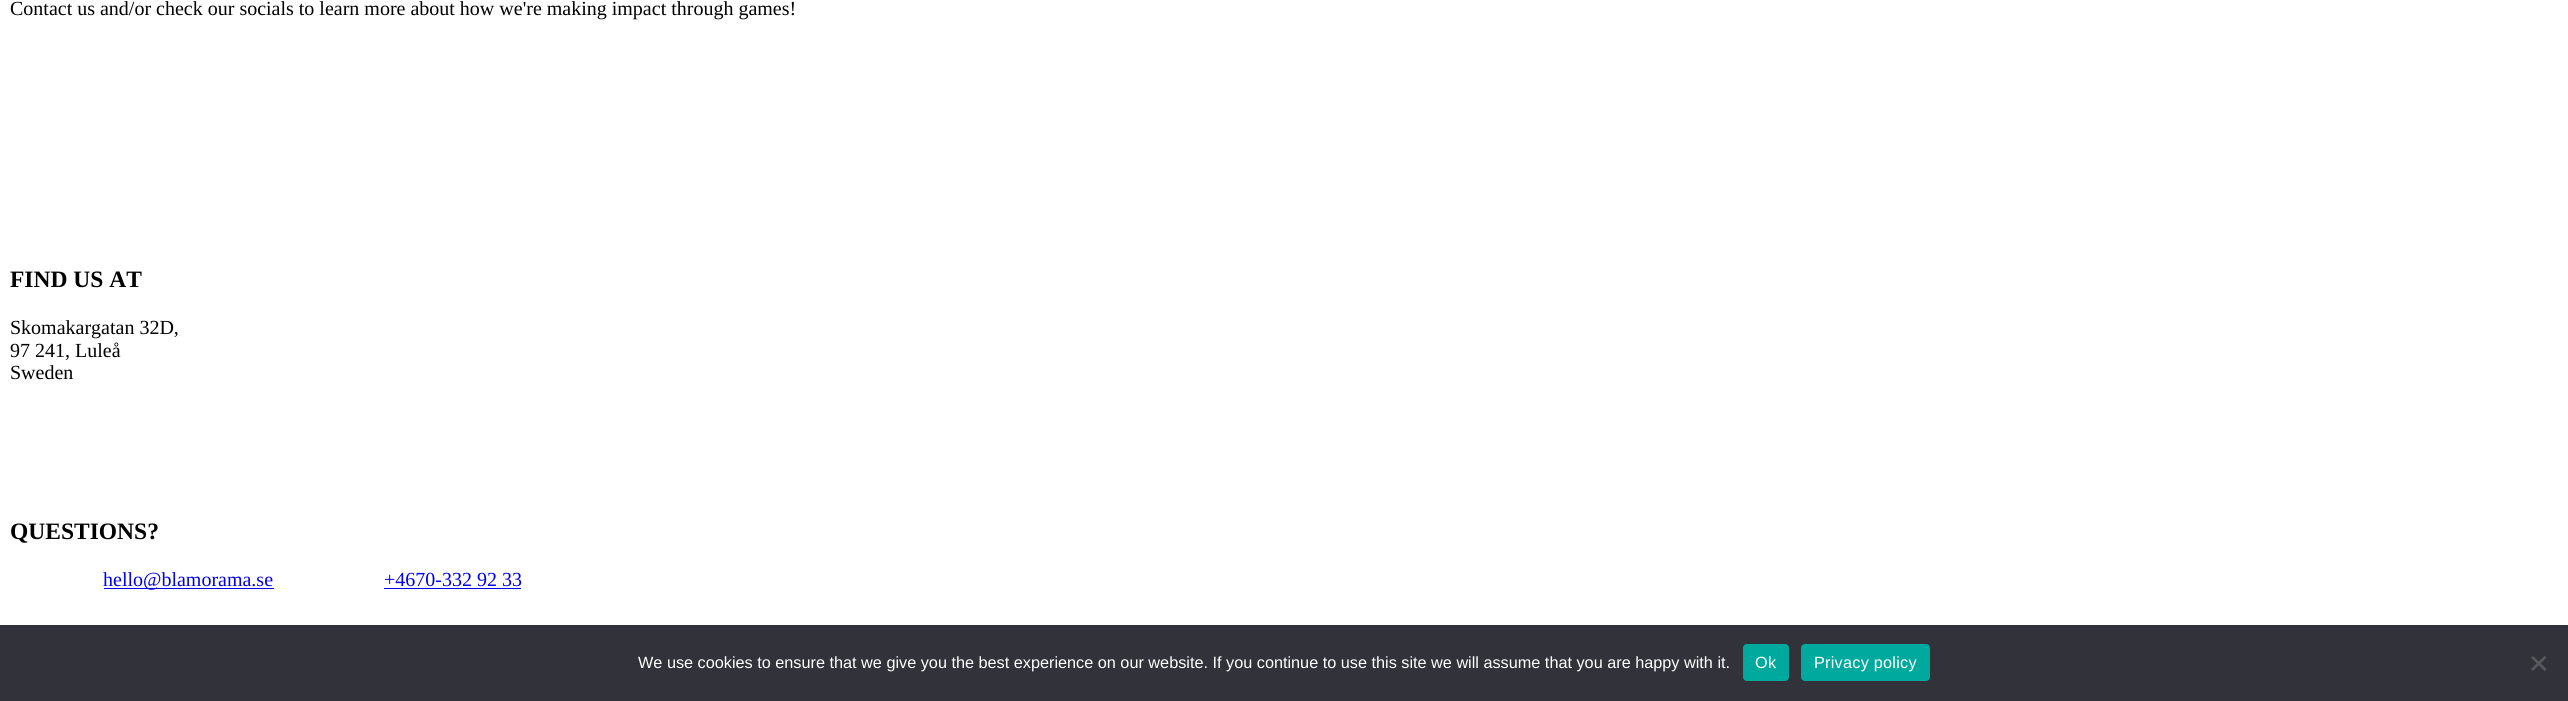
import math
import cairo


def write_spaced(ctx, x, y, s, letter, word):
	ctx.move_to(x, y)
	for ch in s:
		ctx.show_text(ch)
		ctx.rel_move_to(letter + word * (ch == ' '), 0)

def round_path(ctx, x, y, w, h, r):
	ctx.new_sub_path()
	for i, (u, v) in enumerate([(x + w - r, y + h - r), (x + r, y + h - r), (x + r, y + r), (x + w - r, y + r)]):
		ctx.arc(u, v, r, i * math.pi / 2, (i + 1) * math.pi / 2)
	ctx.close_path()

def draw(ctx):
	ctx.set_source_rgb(1, 1, 1)
	ctx.paint()
	ctx.select_font_face('Liberation Serif')
	ctx.set_font_size(20)
	ctx.set_source_rgb(0, 0, 0)
	ctx.move_to(10, 15)
	ctx.show_text('Contact us and/or check our socials to learn more about how we\'re making impact through games!')
	ctx.select_font_face('Liberation Serif', cairo.FONT_SLANT_NORMAL, cairo.FONT_WEIGHT_BOLD)
	ctx.set_font_size(23.5)
	ctx.move_to(10, 287)
	ctx.show_text('FIND US AT')
	ctx.select_font_face('Liberation Serif')
	ctx.set_font_size(20)
	for x, y, s in [
		(10, 334, 'Skomakargatan 32D,'),
		(10, 357, '97 241, Luleå'),
		(10, 379, 'Sweden'),
	]:
		ctx.move_to(x, y)
		ctx.show_text(s)
	ctx.select_font_face('Liberation Serif', cairo.FONT_SLANT_NORMAL, cairo.FONT_WEIGHT_BOLD)
	ctx.set_font_size(23.5)
	ctx.move_to(10, 539)
	ctx.show_text('QUESTIONS?')
	ctx.set_source_rgb(0, 0, 0.933)
	ctx.rectangle(104, 588, 170, 1)
	ctx.fill()
	ctx.select_font_face('Liberation Serif')
	ctx.set_font_size(20)
	ctx.move_to(103, 586)
	ctx.show_text('hello@blamorama.se')
	ctx.move_to(384, 586)
	ctx.show_text('+4670-332 92 33')
	ctx.rectangle(384, 588, 137, 1)
	ctx.fill()
	ctx.set_source_rgb(0.196, 0.196, 0.227)
	ctx.rectangle(0, 625, 2568, 76)
	ctx.fill()
	ctx.select_font_face('Liberation Sans')
	ctx.set_font_size(16.25)
	ctx.set_source_rgb(1, 1, 1)
	ctx.move_to(638, 668)
	ctx.show_text('We use cookies to ensure that we give you the best experience on our website. If you continue to use this site we will assume that you are happy with it.')
	ctx.set_source_rgb(0, 0.663, 0.616)
	round_path(ctx, 1743, 644, 46, 37, 4)
	ctx.fill()
	ctx.set_source_rgb(1, 1, 1)
	write_spaced(ctx, 1755, 668, 'Ok', 0.25, 0)
	ctx.set_source_rgb(0, 0.663, 0.616)
	round_path(ctx, 1801, 644, 129, 37, 4)
	ctx.fill()
	ctx.set_source_rgb(1, 1, 1)
	write_spaced(ctx, 1814, 668, 'Privacy policy', 0.25, 0)
	ctx.set_source_rgb(0.349, 0.349, 0.365)
	ctx.new_path()
	ctx.move_to(2544.5, 656)
	ctx.line_to(2546.5, 657.5)
	ctx.line_to(2533, 671)
	ctx.line_to(2531, 669)
	ctx.close_path()
	ctx.fill()
	ctx.new_path()
	ctx.move_to(2531, 657.5)
	ctx.line_to(2533, 656)
	ctx.line_to(2546.5, 669)
	ctx.line_to(2544.5, 671)
	ctx.close_path()
	ctx.fill()


surface = cairo.ImageSurface(cairo.FORMAT_RGB24, 2568, 701)
ctx = cairo.Context(surface)
options = cairo.FontOptions()
options.set_hint_metrics(cairo.HINT_METRICS_OFF)
options.set_hint_style(cairo.HINT_STYLE_NONE)
ctx.set_font_options(options)
ctx.set_miter_limit(4)
draw(ctx)
surface.write_to_png('image.png')
